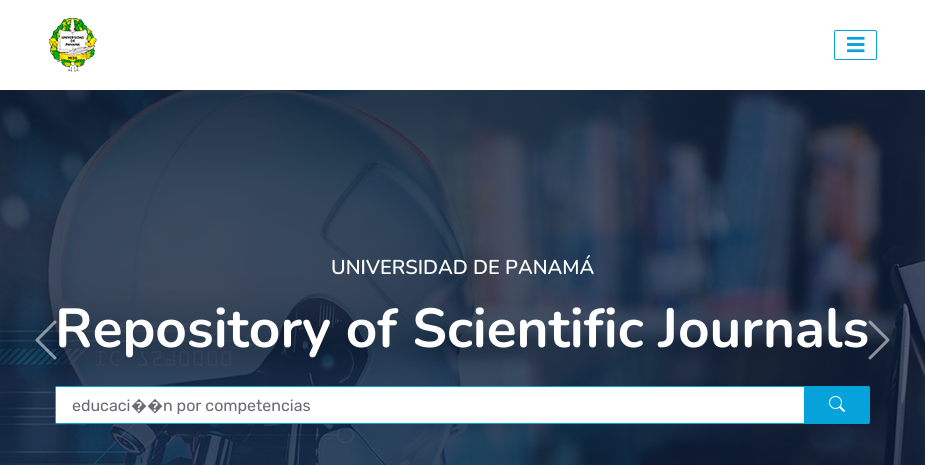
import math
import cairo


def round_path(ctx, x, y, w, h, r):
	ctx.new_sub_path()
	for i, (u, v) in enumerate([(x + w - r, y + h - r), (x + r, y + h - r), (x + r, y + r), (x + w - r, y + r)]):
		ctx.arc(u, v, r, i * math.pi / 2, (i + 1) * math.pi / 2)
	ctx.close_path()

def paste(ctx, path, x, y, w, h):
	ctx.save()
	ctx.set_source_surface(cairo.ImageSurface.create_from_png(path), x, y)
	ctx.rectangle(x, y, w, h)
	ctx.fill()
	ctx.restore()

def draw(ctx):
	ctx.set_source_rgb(1, 1, 1)
	ctx.paint()
	paste(ctx, 'media/1.png', 49, 18, 48, 54)
	round_path(ctx, 834.5, 30.5, 42, 29, 1.5)
	ctx.set_source_rgb(0.024, 0.639, 0.855)
	ctx.set_line_width(1)
	ctx.stroke()
	paste(ctx, 'media/2.png', 847, 36, 18, 17)
	paste(ctx, 'media/4.png', 0, 90, 925, 375)
	paste(ctx, 'media/3.png', 35, 320, 22, 40)
	ctx.select_font_face('Nunito SemiBold')
	ctx.set_font_size(20)
	ctx.set_source_rgb(1, 1, 1)
	ctx.move_to(331, 274)
	ctx.show_text('UNIVERSIDAD DE PANAMÁ')
	ctx.select_font_face('Nunito', cairo.FONT_SLANT_NORMAL, cairo.FONT_WEIGHT_BOLD)
	ctx.set_font_size(54.9)
	ctx.move_to(55, 347)
	ctx.show_text('Repository of Scientific Journals')
	ctx.new_path()
	ctx.move_to(57, 386.5)
	ctx.line_to(804.5, 386.5)
	ctx.line_to(804.5, 423.5)
	ctx.line_to(57, 423.5)
	ctx.curve_to(56, 423.5, 55.5, 423, 55.5, 422)
	ctx.line_to(55.5, 388)
	ctx.curve_to(55.5, 387, 56, 386.5, 57, 386.5)
	ctx.close_path()
	ctx.fill_preserve()
	ctx.set_source_rgb(0.024, 0.639, 0.855)
	ctx.stroke()
	ctx.select_font_face('Rubik')
	ctx.set_font_size(16)
	ctx.set_source_rgb(0.42, 0.416, 0.459)
	ctx.move_to(72, 411)
	ctx.show_text('educaci')
	ctx.select_font_face('Noto Sans')
	ctx.move_to(131, 411)
	ctx.show_text('��')
	ctx.select_font_face('Rubik')
	ctx.move_to(163, 411)
	ctx.show_text('n por competencias')
	ctx.set_source_rgb(0.024, 0.639, 0.855)
	ctx.new_path()
	ctx.move_to(804.5, 386.5)
	ctx.line_to(868, 386.5)
	ctx.curve_to(869, 386.5, 869.5, 387, 869.5, 388)
	ctx.line_to(869.5, 422)
	ctx.curve_to(869.5, 423, 869, 423.5, 868, 423.5)
	ctx.line_to(804.5, 423.5)
	ctx.close_path()
	ctx.fill_preserve()
	ctx.stroke()
	paste(ctx, 'media/5.png', 829, 396, 16, 16)
	paste(ctx, 'media/6.png', 868, 320, 22, 40)
	ctx.set_source_rgb(0.043, 0.647, 0.859)
	ctx.rectangle(855, 386, 2, 1)
	ctx.fill()


surface = cairo.ImageSurface(cairo.FORMAT_RGB24, 925, 465)
ctx = cairo.Context(surface)
options = cairo.FontOptions()
options.set_hint_metrics(cairo.HINT_METRICS_OFF)
options.set_hint_style(cairo.HINT_STYLE_NONE)
ctx.set_font_options(options)
ctx.set_miter_limit(4)
draw(ctx)
surface.write_to_png('image.png')
